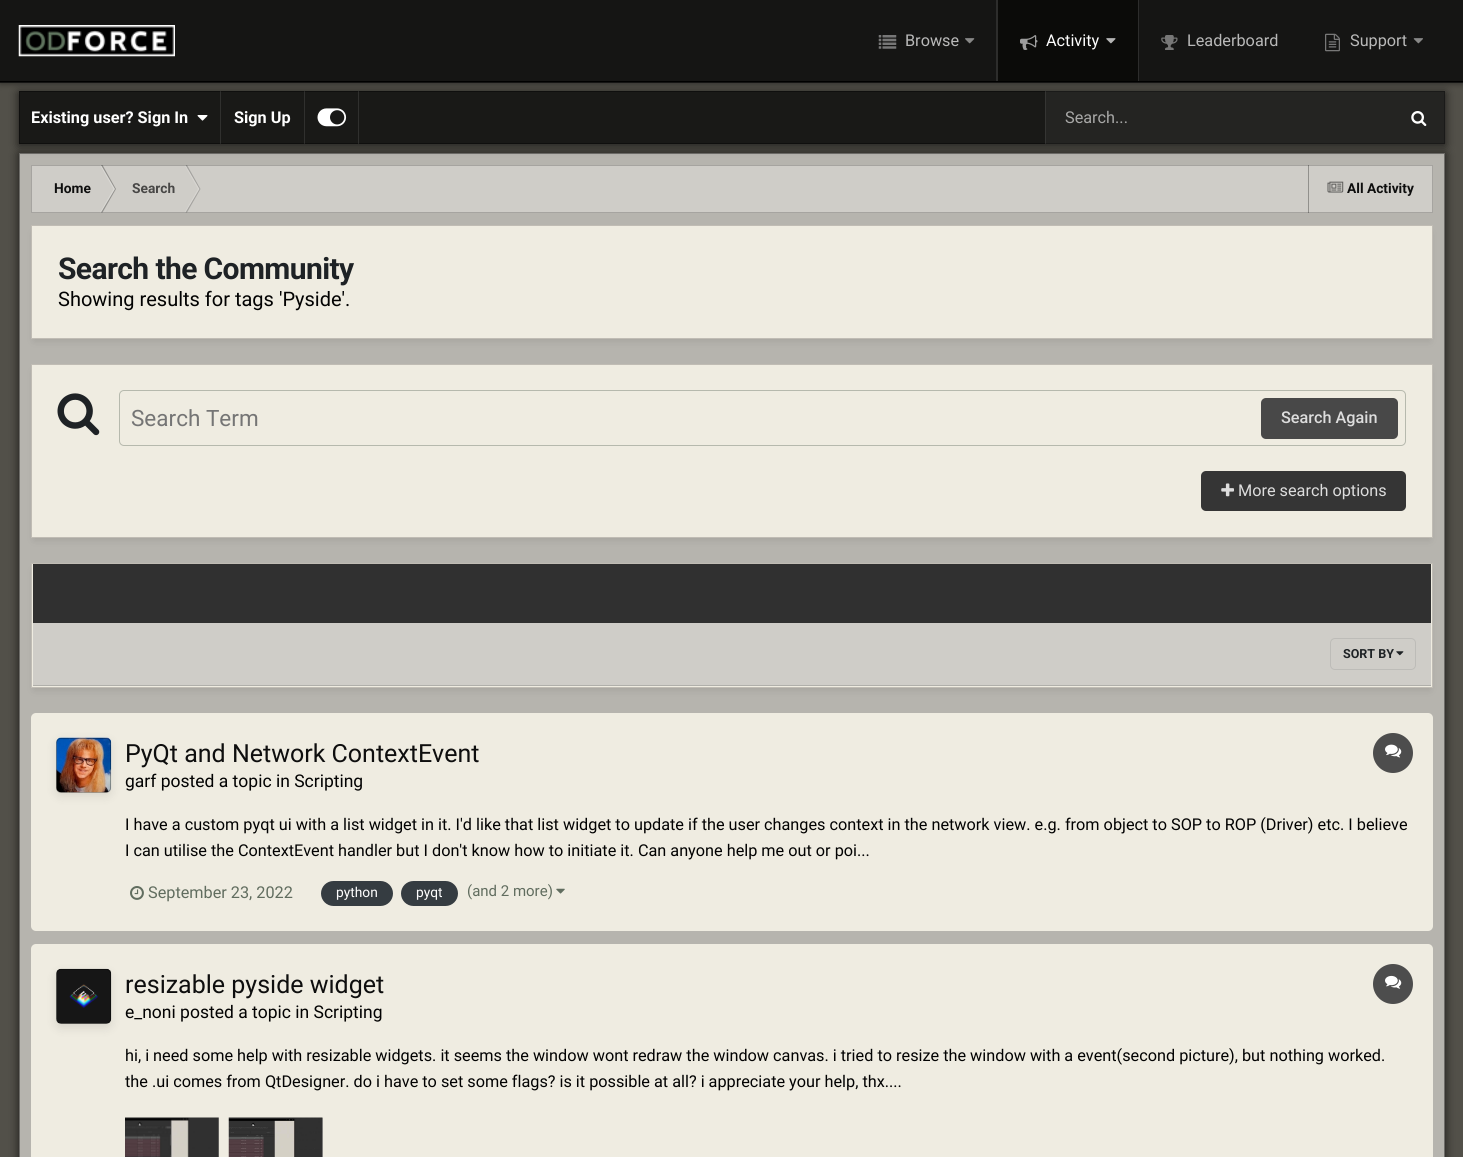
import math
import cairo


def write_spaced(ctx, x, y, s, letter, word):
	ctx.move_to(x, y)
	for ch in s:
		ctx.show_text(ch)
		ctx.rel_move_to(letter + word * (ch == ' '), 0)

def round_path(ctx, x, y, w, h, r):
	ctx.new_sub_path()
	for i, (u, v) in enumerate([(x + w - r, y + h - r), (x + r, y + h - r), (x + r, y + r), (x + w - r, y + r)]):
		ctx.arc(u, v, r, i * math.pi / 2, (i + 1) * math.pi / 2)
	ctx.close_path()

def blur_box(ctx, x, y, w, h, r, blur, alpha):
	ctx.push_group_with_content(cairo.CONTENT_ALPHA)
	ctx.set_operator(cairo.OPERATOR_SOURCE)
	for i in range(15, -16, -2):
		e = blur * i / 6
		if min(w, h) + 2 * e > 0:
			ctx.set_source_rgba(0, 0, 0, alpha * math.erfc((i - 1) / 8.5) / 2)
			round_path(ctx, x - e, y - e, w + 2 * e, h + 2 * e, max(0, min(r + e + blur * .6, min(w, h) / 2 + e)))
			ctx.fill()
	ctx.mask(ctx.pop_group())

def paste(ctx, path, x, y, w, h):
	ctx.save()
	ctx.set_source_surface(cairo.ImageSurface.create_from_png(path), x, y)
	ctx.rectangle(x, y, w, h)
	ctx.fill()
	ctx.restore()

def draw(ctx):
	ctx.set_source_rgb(0.322, 0.314, 0.286)
	ctx.paint()
	ctx.set_source_rgb(0, 0, 0)
	blur_box(ctx, 19, 154, 1426, 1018, 0, 5, 0.7)
	ctx.set_source_rgb(0.714, 0.706, 0.682)
	ctx.rectangle(19.5, 153.5, 1425, 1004)
	ctx.fill_preserve()
	ctx.set_source_rgb(0.427, 0.424, 0.408)
	ctx.set_line_width(1)
	ctx.stroke()
	ctx.save()
	ctx.set_fill_rule(cairo.FILL_RULE_EVEN_ODD)
	ctx.new_path()
	ctx.move_to(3, 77)
	ctx.line_to(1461, 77)
	ctx.line_to(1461, 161)
	ctx.line_to(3, 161)
	ctx.close_path()
	ctx.move_to(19, 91)
	ctx.line_to(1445, 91)
	ctx.line_to(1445, 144)
	ctx.line_to(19, 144)
	ctx.close_path()
	ctx.clip()
	ctx.set_source_rgb(0, 0, 0)
	blur_box(ctx, 19, 93, 1426, 52, 0, 5, 0.7)
	ctx.restore()
	ctx.set_source_rgba(0.059, 0.059, 0.059, 0.84)
	ctx.rectangle(19.5, 91.5, 1425, 52)
	ctx.fill_preserve()
	ctx.set_source_rgb(0.059, 0.059, 0.055)
	ctx.stroke()
	ctx.set_source_rgba(1, 1, 1, 0.1)
	ctx.rectangle(220, 91, 1, 53)
	ctx.fill()
	ctx.rectangle(304, 91, 1, 53)
	ctx.fill()
	ctx.rectangle(358, 91, 1, 53)
	ctx.fill()
	ctx.set_source_rgba(1, 1, 1, 0.05)
	ctx.rectangle(1045, 91, 400, 53)
	ctx.fill()
	ctx.set_source_rgba(1, 1, 1, 0.08)
	ctx.rectangle(1045, 91, 1, 53)
	ctx.fill()
	ctx.save()
	ctx.set_fill_rule(cairo.FILL_RULE_EVEN_ODD)
	ctx.new_path()
	ctx.move_to(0, 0)
	ctx.line_to(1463, 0)
	ctx.line_to(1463, 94)
	ctx.line_to(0, 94)
	ctx.close_path()
	ctx.move_to(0, 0)
	ctx.line_to(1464, 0)
	ctx.line_to(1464, 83)
	ctx.line_to(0, 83)
	ctx.close_path()
	ctx.clip()
	ctx.set_source_rgb(0, 0, 0)
	blur_box(ctx, 0, 1, 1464, 83, 0, 3, 0.4)
	ctx.restore()
	ctx.set_source_rgba(0.059, 0.059, 0.059, 0.9)
	ctx.rectangle(0, 0, 1463, 83)
	ctx.fill()
	ctx.set_source_rgb(0, 0, 0)
	ctx.rectangle(0, 81, 1463, 1)
	ctx.fill()
	paste(ctx, 'media/1.png', 18, 25, 157, 32)
	paste(ctx, 'media/2.png', 878, 35, 19, 14)
	ctx.select_font_face('Roboto')
	ctx.set_font_size(16.25)
	ctx.set_source_rgb(0.725, 0.725, 0.725)
	ctx.move_to(905, 46)
	ctx.show_text('Browse')
	paste(ctx, 'media/3.png', 965, 38, 10, 6)
	ctx.set_source_rgb(0.176, 0.176, 0.173)
	ctx.rectangle(996, 0, 2, 81)
	ctx.rectangle(1138, 0, 1, 81)
	ctx.fill()
	ctx.set_source_rgb(0.043, 0.043, 0.039)
	ctx.rectangle(998, 0, 140, 81)
	ctx.fill()
	paste(ctx, 'media/4.png', 1020, 35, 18, 15)
	ctx.set_source_rgb(1, 1, 1)
	ctx.move_to(1046, 46)
	ctx.show_text('Activity')
	paste(ctx, 'media/5.png', 1106, 38, 10, 6)
	paste(ctx, 'media/6.png', 1161, 35, 17, 15)
	ctx.set_source_rgb(0.725, 0.725, 0.725)
	ctx.move_to(1187, 46)
	ctx.show_text('Leaderboard')
	paste(ctx, 'media/7.png', 1325, 33, 15, 19)
	ctx.move_to(1350, 46)
	ctx.show_text('Support')
	paste(ctx, 'media/8.png', 1413, 38, 10, 6)
	ctx.select_font_face('Roboto', cairo.FONT_SLANT_NORMAL, cairo.FONT_WEIGHT_BOLD)
	ctx.set_source_rgb(1, 1, 1)
	ctx.move_to(31, 123)
	ctx.show_text('Existing user? Sign In')
	paste(ctx, 'media/9.png', 197, 115, 11, 6)
	ctx.move_to(234, 123)
	ctx.show_text('Sign Up')
	paste(ctx, 'media/10.png', 317, 108, 30, 19)
	ctx.select_font_face('Roboto')
	ctx.set_source_rgb(0.659, 0.659, 0.655)
	ctx.move_to(1065, 123)
	ctx.show_text('Search...')
	paste(ctx, 'media/11.png', 1411, 111, 16, 16)
	ctx.set_source_rgb(0.812, 0.804, 0.784)
	ctx.rectangle(31, 165, 1402, 48)
	ctx.fill()
	ctx.set_source_rgb(0.859, 0.855, 0.839)
	ctx.new_path()
	ctx.move_to(100, 165)
	ctx.line_to(101, 165)
	ctx.line_to(115, 189)
	ctx.line_to(113.5, 189)
	ctx.close_path()
	ctx.fill()
	ctx.set_source_rgba(0, 0, 0, 0.3)
	ctx.new_path()
	ctx.move_to(101, 165)
	ctx.line_to(102.5, 165)
	ctx.line_to(116, 189)
	ctx.line_to(115, 189)
	ctx.close_path()
	ctx.fill()
	ctx.set_source_rgb(0.859, 0.855, 0.839)
	ctx.new_path()
	ctx.move_to(100, 212.5)
	ctx.line_to(101, 212.5)
	ctx.line_to(115, 189)
	ctx.line_to(113.5, 189)
	ctx.close_path()
	ctx.fill()
	ctx.set_source_rgba(0, 0, 0, 0.3)
	ctx.new_path()
	ctx.move_to(101, 212.5)
	ctx.line_to(102.5, 212.5)
	ctx.line_to(116, 189)
	ctx.line_to(115, 189)
	ctx.close_path()
	ctx.fill()
	ctx.set_source_rgb(0.847, 0.839, 0.824)
	ctx.new_path()
	ctx.move_to(184.5, 165)
	ctx.line_to(185.5, 165)
	ctx.line_to(199.5, 189)
	ctx.line_to(198, 189)
	ctx.close_path()
	ctx.fill()
	ctx.set_source_rgba(0.243, 0.243, 0.235, 0.3)
	ctx.new_path()
	ctx.move_to(185.5, 165)
	ctx.line_to(187, 165)
	ctx.line_to(200.5, 189)
	ctx.line_to(199.5, 189)
	ctx.close_path()
	ctx.fill()
	ctx.set_source_rgb(0.847, 0.839, 0.824)
	ctx.new_path()
	ctx.move_to(184.5, 212.5)
	ctx.line_to(185.5, 212.5)
	ctx.line_to(199.5, 189)
	ctx.line_to(198, 189)
	ctx.close_path()
	ctx.fill()
	ctx.set_source_rgba(0.243, 0.243, 0.235, 0.3)
	ctx.new_path()
	ctx.move_to(185.5, 212.5)
	ctx.line_to(187, 212.5)
	ctx.line_to(200.5, 189)
	ctx.line_to(199.5, 189)
	ctx.close_path()
	ctx.fill()
	ctx.set_source_rgb(0.569, 0.565, 0.549)
	ctx.rectangle(1308, 165, 1, 48)
	ctx.fill()
	paste(ctx, 'media/12.png', 1327, 181, 17, 12)
	ctx.rectangle(31.5, 165.5, 1401, 47)
	ctx.set_source_rgba(0.008, 0.008, 0.008, 0.2)
	ctx.stroke()
	ctx.select_font_face('Roboto', cairo.FONT_SLANT_NORMAL, cairo.FONT_WEIGHT_BOLD)
	ctx.set_font_size(13.75)
	ctx.set_source_rgb(0.055, 0.055, 0.055)
	ctx.move_to(54, 193)
	ctx.show_text('Home')
	ctx.set_source_rgb(0.282, 0.278, 0.275)
	ctx.move_to(132, 193)
	ctx.show_text('Search')
	ctx.set_source_rgb(0.055, 0.055, 0.055)
	ctx.move_to(1347, 193)
	ctx.show_text('All Activity')
	ctx.set_source_rgb(0, 0, 0)
	blur_box(ctx, 34, 233, 1396, 108, 0, 4, 0.1)
	ctx.set_source_rgb(0.937, 0.922, 0.882)
	ctx.rectangle(31.5, 225.5, 1401, 113)
	ctx.fill_preserve()
	ctx.set_source_rgb(0.753, 0.737, 0.706)
	ctx.stroke()
	ctx.set_font_size(30)
	ctx.set_source_rgb(0.118, 0.133, 0.145)
	write_spaced(ctx, 58, 279, 'Search the Community', -0.6, 0)
	ctx.select_font_face('Roboto')
	ctx.set_font_size(20)
	ctx.set_source_rgb(0.008, 0.008, 0.008)
	ctx.move_to(58, 306)
	ctx.show_text('Showing results for tags \'Pyside\'.')
	ctx.set_source_rgb(0, 0, 0)
	blur_box(ctx, 34, 371, 1396, 169, 0, 4, 0.1)
	ctx.set_source_rgb(0.937, 0.922, 0.882)
	ctx.rectangle(31.5, 364.5, 1401, 173)
	ctx.fill_preserve()
	ctx.set_source_rgb(0.753, 0.737, 0.706)
	ctx.stroke()
	paste(ctx, 'media/13.png', 57, 393, 43, 43)
	round_path(ctx, 119.5, 390.5, 1286, 55, 4.5)
	ctx.set_source_rgb(0.714, 0.725, 0.678)
	ctx.stroke()
	ctx.set_font_size(22.5)
	ctx.set_source_rgb(0.459, 0.459, 0.459)
	ctx.move_to(131, 426)
	ctx.show_text('Search Term')
	ctx.set_source_rgb(0.282, 0.282, 0.282)
	round_path(ctx, 1261, 398, 137, 41, 5)
	ctx.fill()
	ctx.select_font_face('Roboto Medium')
	ctx.set_font_size(16.25)
	ctx.set_source_rgb(0.867, 0.867, 0.867)
	ctx.move_to(1281, 423)
	ctx.show_text('Search Again')
	ctx.set_source_rgb(0.208, 0.208, 0.208)
	round_path(ctx, 1201, 471, 205, 40, 5)
	ctx.fill()
	paste(ctx, 'media/14.png', 1221, 483, 13, 14)
	ctx.select_font_face('Roboto')
	ctx.set_source_rgb(0.867, 0.867, 0.867)
	ctx.move_to(1238, 496)
	ctx.show_text('More search options')
	ctx.set_source_rgb(0, 0, 0)
	blur_box(ctx, 34, 570, 1396, 120, 0, 4, 0.1)
	ctx.set_source_rgb(0.937, 0.922, 0.882)
	ctx.rectangle(31.5, 563.5, 1401, 124)
	ctx.fill_preserve()
	ctx.set_source_rgb(0.753, 0.737, 0.706)
	ctx.stroke()
	ctx.set_source_rgb(0.188, 0.188, 0.188)
	ctx.rectangle(33, 564, 1398, 59)
	ctx.fill()
	ctx.set_source_rgb(0.812, 0.804, 0.784)
	ctx.rectangle(33, 623, 1398, 62)
	ctx.fill()
	ctx.set_source_rgb(0.69, 0.686, 0.667)
	ctx.rectangle(33, 685, 1398, 1)
	ctx.fill()
	paste(ctx, 'media/15.png', 1396, 651, 8, 5)
	round_path(ctx, 1330.5, 638.5, 85, 31, 4.5)
	ctx.set_source_rgb(0.741, 0.737, 0.722)
	ctx.stroke()
	ctx.select_font_face('Roboto', cairo.FONT_SLANT_NORMAL, cairo.FONT_WEIGHT_BOLD)
	ctx.set_font_size(12.5)
	ctx.set_source_rgb(0.118, 0.133, 0.145)
	ctx.move_to(1343, 658)
	ctx.show_text('SORT BY')
	ctx.set_source_rgb(0.937, 0.922, 0.882)
	round_path(ctx, 31, 713, 1402, 218, 5)
	ctx.fill()
	paste(ctx, 'media/16.png', 56, 737, 56, 56)
	ctx.save()
	ctx.set_fill_rule(cairo.FILL_RULE_EVEN_ODD)
	ctx.new_path()
	ctx.move_to(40, 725)
	ctx.line_to(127, 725)
	ctx.line_to(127, 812)
	ctx.line_to(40, 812)
	ctx.close_path()
	ctx.move_to(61, 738)
	ctx.line_to(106, 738)
	ctx.curve_to(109, 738, 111, 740, 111, 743)
	ctx.line_to(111, 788)
	ctx.curve_to(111, 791, 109, 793, 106, 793)
	ctx.line_to(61, 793)
	ctx.curve_to(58, 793, 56, 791, 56, 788)
	ctx.line_to(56, 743)
	ctx.curve_to(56, 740, 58, 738, 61, 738)
	ctx.close_path()
	ctx.clip()
	ctx.set_source_rgb(0, 0, 0)
	blur_box(ctx, 56, 741, 55, 55, 5, 5, 0.1)
	ctx.restore()
	round_path(ctx, 56.5, 738.5, 54, 54, 4.5)
	ctx.set_source_rgba(0.008, 0.008, 0.008, 0.3)
	ctx.stroke()
	ctx.select_font_face('Roboto')
	ctx.set_font_size(25)
	ctx.set_source_rgb(0.055, 0.055, 0.055)
	ctx.move_to(125, 762)
	ctx.show_text('PyQt and Network ContextEvent')
	ctx.set_font_size(17.5)
	ctx.set_source_rgb(0.008, 0.008, 0.008)
	ctx.move_to(125, 787)
	ctx.show_text('garf posted a topic in Scripting')
	ctx.set_source_rgb(0.302, 0.302, 0.302)
	ctx.new_path()
	ctx.arc(1393, 753, 20, 0, 2 * math.pi)
	ctx.fill()
	paste(ctx, 'media/17.png', 1385, 744, 17, 14)
	ctx.set_font_size(16.25)
	ctx.set_source_rgb(0.008, 0.008, 0.008)
	ctx.move_to(125, 830)
	ctx.show_text('I have a custom pyqt ui with a list widget in it. I\'d like that list widget to update if the user changes context in the network view. e.g. from object to SOP to ROP (Driver) etc. I believe')
	ctx.move_to(125, 856)
	ctx.show_text('I can utilise the ContextEvent handler but I don\'t know how to initiate it. Can anyone help me out or poi...')
	paste(ctx, 'media/18.png', 130, 886, 14, 14)
	ctx.set_source_rgb(0.38, 0.427, 0.373)
	ctx.move_to(148, 898)
	ctx.show_text('September 23, 2022')
	ctx.set_source_rgb(0.208, 0.235, 0.255)
	round_path(ctx, 321, 881, 72, 25, 12.5)
	ctx.fill()
	ctx.set_font_size(13.75)
	ctx.set_source_rgb(1, 1, 1)
	ctx.move_to(336, 897)
	ctx.show_text('python')
	ctx.set_source_rgb(0.208, 0.235, 0.255)
	round_path(ctx, 401, 881, 57, 25, 12.5)
	ctx.fill()
	ctx.set_source_rgb(1, 1, 1)
	ctx.move_to(416, 897)
	ctx.show_text('pyqt')
	ctx.set_font_size(15)
	ctx.set_source_rgb(0.38, 0.427, 0.373)
	ctx.move_to(467, 896)
	ctx.show_text('(and 2 more)')
	paste(ctx, 'media/19.png', 556, 888, 9, 6)
	ctx.set_source_rgb(0.937, 0.922, 0.882)
	round_path(ctx, 31, 944, 1402, 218, 5)
	ctx.fill()
	paste(ctx, 'media/20.png', 56, 968, 56, 56)
	ctx.save()
	ctx.set_fill_rule(cairo.FILL_RULE_EVEN_ODD)
	ctx.new_path()
	ctx.move_to(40, 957)
	ctx.line_to(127, 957)
	ctx.line_to(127, 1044)
	ctx.line_to(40, 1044)
	ctx.close_path()
	ctx.move_to(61, 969)
	ctx.line_to(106, 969)
	ctx.curve_to(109, 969, 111, 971, 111, 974)
	ctx.line_to(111, 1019)
	ctx.curve_to(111, 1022, 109, 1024, 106, 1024)
	ctx.line_to(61, 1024)
	ctx.curve_to(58, 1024, 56, 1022, 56, 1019)
	ctx.line_to(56, 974)
	ctx.curve_to(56, 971, 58, 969, 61, 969)
	ctx.close_path()
	ctx.clip()
	ctx.set_source_rgb(0, 0, 0)
	blur_box(ctx, 56, 973, 55, 55, 5, 5, 0.1)
	ctx.restore()
	round_path(ctx, 56.5, 969.5, 54, 54, 4.5)
	ctx.set_source_rgba(0.008, 0.008, 0.008, 0.3)
	ctx.stroke()
	ctx.set_font_size(25)
	ctx.set_source_rgb(0.055, 0.055, 0.055)
	ctx.move_to(125, 993)
	ctx.show_text('resizable pyside widget')
	ctx.set_font_size(17.5)
	ctx.set_source_rgb(0.008, 0.008, 0.008)
	ctx.move_to(125, 1018)
	ctx.show_text('e_noni posted a topic in Scripting')
	ctx.set_source_rgb(0.302, 0.302, 0.302)
	ctx.new_path()
	ctx.arc(1393, 984, 20, 0, 2 * math.pi)
	ctx.fill()
	paste(ctx, 'media/21.png', 1385, 975, 17, 14)
	ctx.set_font_size(16.25)
	ctx.set_source_rgb(0.008, 0.008, 0.008)
	ctx.move_to(125, 1061)
	ctx.show_text('hi, i need some help with resizable widgets. it seems the window wont redraw the window canvas. i tried to resize the window with a event(second picture), but nothing worked.')
	ctx.move_to(125, 1087)
	ctx.show_text('the .ui comes from QtDesigner. do i have to set some flags? is it possible at all? i appreciate your help, thx....')
	paste(ctx, 'media/22.png', 125, 1117, 94, 40)
	ctx.set_source_rgb(0.812, 0.804, 0.784)
	ctx.rectangle(322, 1118, 1, 39)
	ctx.fill()
	paste(ctx, 'media/23.png', 228, 1117, 95, 40)


surface = cairo.ImageSurface(cairo.FORMAT_RGB24, 1463, 1157)
ctx = cairo.Context(surface)
options = cairo.FontOptions()
options.set_hint_metrics(cairo.HINT_METRICS_OFF)
options.set_hint_style(cairo.HINT_STYLE_NONE)
ctx.set_font_options(options)
ctx.set_miter_limit(4)
draw(ctx)
surface.write_to_png('image.png')
